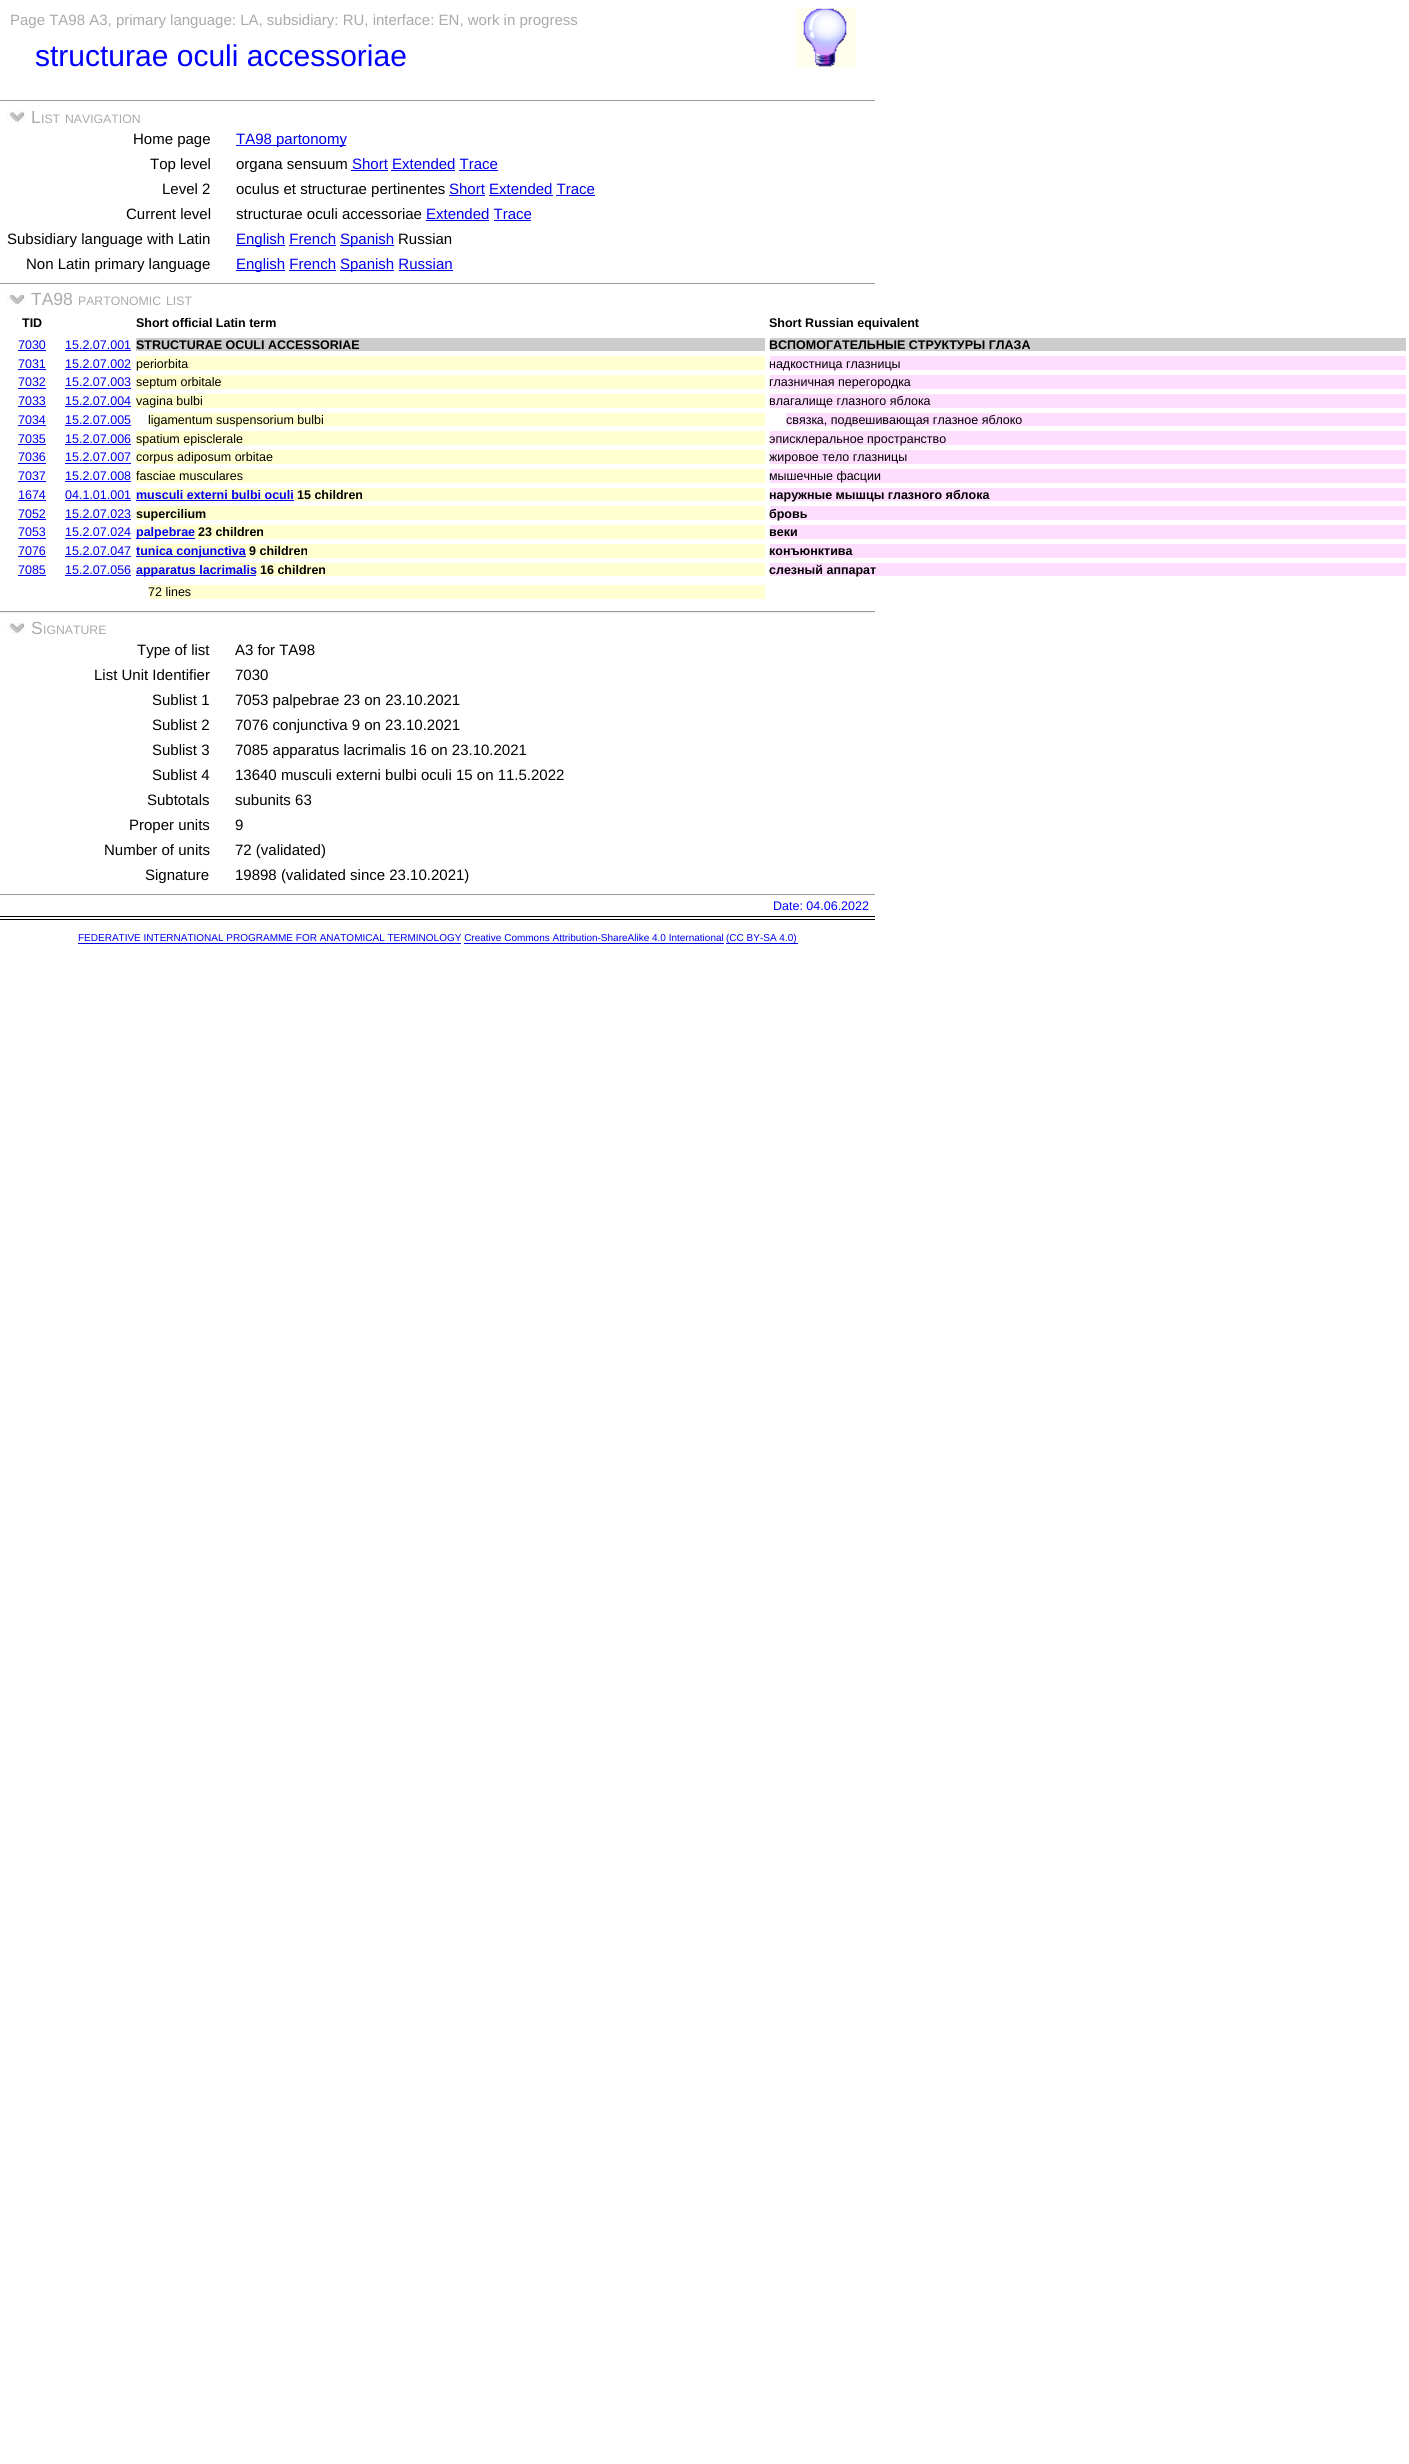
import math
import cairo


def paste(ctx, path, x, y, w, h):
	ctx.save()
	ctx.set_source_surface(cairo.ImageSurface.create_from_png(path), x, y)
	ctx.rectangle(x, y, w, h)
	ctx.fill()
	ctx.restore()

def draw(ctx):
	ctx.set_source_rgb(1, 1, 1)
	ctx.paint()
	ctx.select_font_face('Liberation Sans')
	ctx.set_font_size(15)
	ctx.set_source_rgb(0.667, 0.667, 0.667)
	ctx.move_to(10, 25)
	ctx.show_text('Page TA98 A3, primary language: LA, subsidiary: RU, interface: EN, work in progress')
	ctx.set_font_size(30)
	ctx.set_source_rgb(0, 0, 1)
	ctx.move_to(35, 66)
	ctx.show_text('structurae oculi accessoriae')
	paste(ctx, 'media/1.png', 796, 7, 61, 61)
	ctx.set_source_rgb(0.6, 0.6, 0.6)
	ctx.rectangle(0, 100, 875, 1)
	ctx.fill()
	paste(ctx, 'media/2.png', 6, 107, 20, 15)
	ctx.set_font_size(17.5)
	ctx.set_source_rgb(0.667, 0.667, 0.667)
	ctx.move_to(31, 123)
	ctx.show_text('L')
	ctx.set_font_size(12.25)
	ctx.move_to(41, 123)
	ctx.show_text('IST')
	ctx.move_to(65, 123)
	ctx.show_text('NAVIGATION')
	ctx.set_font_size(15)
	ctx.set_source_rgb(0, 0, 0)
	ctx.move_to(133, 144)
	ctx.show_text('Home page')
	ctx.set_source_rgb(0, 0, 0.933)
	ctx.rectangle(236, 145, 110, 1)
	ctx.fill()
	ctx.move_to(236, 144)
	ctx.show_text('TA98 partonomy')
	ctx.set_source_rgb(0, 0, 0)
	ctx.move_to(150, 169)
	ctx.show_text('Top level')
	ctx.move_to(236, 169)
	ctx.show_text('organa sensuum')
	ctx.set_source_rgb(0, 0, 0.933)
	ctx.move_to(352, 169)
	ctx.show_text('Short Extended Trace')
	ctx.rectangle(351, 170, 37, 1)
	ctx.rectangle(391, 170, 64, 1)
	ctx.rectangle(459, 170, 39, 1)
	ctx.fill()
	ctx.set_source_rgb(0, 0, 0)
	ctx.move_to(162, 194)
	ctx.show_text('Level 2')
	ctx.move_to(236, 194)
	ctx.show_text('oculus et structurae pertinentes')
	ctx.set_source_rgb(0, 0, 0.933)
	ctx.move_to(449, 194)
	ctx.show_text('Short Extended Trace')
	ctx.rectangle(449, 195, 36, 1)
	ctx.rectangle(489, 195, 64, 1)
	ctx.rectangle(556, 195, 39, 1)
	ctx.fill()
	ctx.set_source_rgb(0, 0, 0)
	ctx.move_to(126, 219)
	ctx.show_text('Current level')
	ctx.move_to(236, 219)
	ctx.show_text('structurae oculi accessoriae')
	ctx.set_source_rgb(0, 0, 0.933)
	ctx.move_to(426, 219)
	ctx.show_text('Extended Trace')
	ctx.rectangle(426, 220, 63, 1)
	ctx.fill()
	ctx.rectangle(494, 220, 37, 1)
	ctx.fill()
	ctx.set_source_rgb(0, 0, 0)
	ctx.move_to(7, 244)
	ctx.show_text('Subsidiary language with Latin')
	ctx.set_source_rgb(0, 0, 0.933)
	ctx.rectangle(236, 245, 49, 1)
	ctx.fill()
	ctx.move_to(236, 244)
	ctx.show_text('English French')
	ctx.rectangle(340, 245, 54, 1)
	ctx.fill()
	ctx.move_to(340, 244)
	ctx.show_text('Spanish')
	ctx.set_source_rgb(0, 0, 0)
	ctx.move_to(398, 244)
	ctx.show_text('Russian')
	ctx.set_source_rgb(0, 0, 0.933)
	ctx.rectangle(289, 245, 47, 1)
	ctx.fill()
	ctx.set_source_rgb(0, 0, 0)
	ctx.move_to(26, 269)
	ctx.show_text('Non Latin primary language')
	ctx.set_source_rgb(0, 0, 0.933)
	ctx.rectangle(236, 270, 49, 1)
	ctx.fill()
	ctx.move_to(236, 269)
	ctx.show_text('English French')
	ctx.rectangle(340, 270, 54, 1)
	ctx.fill()
	ctx.move_to(340, 269)
	ctx.show_text('Spanish Russian')
	ctx.rectangle(289, 270, 47, 1)
	ctx.rectangle(399, 270, 54, 1)
	ctx.fill()
	ctx.set_source_rgb(0.6, 0.6, 0.6)
	ctx.rectangle(0, 283, 875, 1)
	ctx.fill()
	paste(ctx, 'media/3.png', 6, 290, 20, 15)
	ctx.set_font_size(17.5)
	ctx.set_source_rgb(0.667, 0.667, 0.667)
	ctx.move_to(31, 305)
	ctx.show_text('TA98')
	ctx.set_font_size(12.25)
	ctx.move_to(78, 305)
	ctx.show_text('PARTONOMIC')
	ctx.move_to(166, 305)
	ctx.show_text('LIST')
	ctx.select_font_face('Liberation Sans', cairo.FONT_SLANT_NORMAL, cairo.FONT_WEIGHT_BOLD)
	ctx.set_font_size(12.5)
	ctx.set_source_rgb(0, 0, 0)
	for x, y, s in [
		(22, 327, 'TID'),
		(136, 327, 'Short official Latin term'),
		(769, 327, 'Short Russian equivalent'),
	]:
		ctx.move_to(x, y)
		ctx.show_text(s)
	ctx.select_font_face('Liberation Sans')
	ctx.set_source_rgb(0, 0, 0.933)
	ctx.move_to(18, 349)
	ctx.show_text('7030')
	ctx.rectangle(18, 350, 28, 1)
	ctx.fill()
	ctx.move_to(65, 349)
	ctx.show_text('15.2.07.001')
	ctx.rectangle(65, 350, 66, 1)
	ctx.fill()
	ctx.set_source_rgb(0.8, 0.8, 0.8)
	ctx.rectangle(136, 338, 629, 13)
	ctx.fill()
	ctx.select_font_face('Liberation Sans', cairo.FONT_SLANT_NORMAL, cairo.FONT_WEIGHT_BOLD)
	ctx.set_source_rgb(0, 0, 0)
	ctx.move_to(136, 349)
	ctx.show_text('STRUCTURAE OCULI ACCESSORIAE')
	ctx.set_source_rgb(0.8, 0.8, 0.8)
	ctx.rectangle(770, 338, 636, 13)
	ctx.fill()
	ctx.set_source_rgb(0, 0, 0)
	ctx.move_to(769, 349)
	ctx.show_text('ВСПОМОГАТЕЛЬНЫЕ СТРУКТУРЫ ГЛАЗА')
	ctx.select_font_face('Liberation Sans')
	ctx.set_source_rgb(0, 0, 0.933)
	ctx.move_to(18, 368)
	ctx.show_text('7031')
	ctx.rectangle(18, 369, 28, 1)
	ctx.fill()
	ctx.move_to(65, 368)
	ctx.show_text('15.2.07.002')
	ctx.rectangle(65, 369, 66, 1)
	ctx.fill()
	ctx.set_source_rgb(1, 1, 0.816)
	ctx.rectangle(136, 356, 629, 14)
	ctx.fill()
	ctx.set_source_rgb(0, 0, 0)
	ctx.move_to(136, 368)
	ctx.show_text('periorbita')
	ctx.set_source_rgb(1, 0.867, 1)
	ctx.rectangle(770, 356, 636, 14)
	ctx.fill()
	ctx.set_source_rgb(0, 0, 0)
	ctx.move_to(769, 368)
	ctx.show_text('надкостница глазницы')
	ctx.set_source_rgb(0, 0, 0.933)
	ctx.move_to(18, 386)
	ctx.show_text('7032')
	ctx.rectangle(18, 388, 28, 1)
	ctx.fill()
	ctx.move_to(65, 386)
	ctx.show_text('15.2.07.003')
	ctx.rectangle(65, 388, 66, 1)
	ctx.fill()
	ctx.set_source_rgb(1, 1, 0.816)
	ctx.rectangle(136, 375, 629, 14)
	ctx.fill()
	ctx.set_source_rgb(0, 0, 0)
	ctx.move_to(136, 386)
	ctx.show_text('septum orbitale')
	ctx.set_source_rgb(1, 0.867, 1)
	ctx.rectangle(770, 375, 636, 14)
	ctx.fill()
	ctx.set_source_rgb(0, 0, 0)
	ctx.move_to(769, 386)
	ctx.show_text('глазничная перегородка')
	ctx.set_source_rgb(0, 0, 0.933)
	ctx.move_to(18, 405)
	ctx.show_text('7033')
	ctx.rectangle(18, 406, 28, 1)
	ctx.fill()
	ctx.move_to(65, 405)
	ctx.show_text('15.2.07.004')
	ctx.rectangle(65, 406, 66, 1)
	ctx.fill()
	ctx.set_source_rgb(1, 1, 0.816)
	ctx.rectangle(136, 394, 629, 14)
	ctx.fill()
	ctx.set_source_rgb(0, 0, 0)
	ctx.move_to(136, 405)
	ctx.show_text('vagina bulbi')
	ctx.set_source_rgb(1, 0.867, 1)
	ctx.rectangle(770, 394, 636, 14)
	ctx.fill()
	ctx.set_source_rgb(0, 0, 0)
	ctx.move_to(769, 405)
	ctx.show_text('влагалище глазного яблока')
	ctx.set_source_rgb(0, 0, 0.933)
	ctx.move_to(18, 424)
	ctx.show_text('7034')
	ctx.rectangle(18, 425, 28, 1)
	ctx.fill()
	ctx.move_to(65, 424)
	ctx.show_text('15.2.07.005')
	ctx.rectangle(65, 425, 66, 1)
	ctx.fill()
	ctx.set_source_rgb(1, 1, 0.816)
	ctx.rectangle(149, 413, 616, 13)
	ctx.fill()
	ctx.set_source_rgb(0, 0, 0)
	ctx.move_to(148, 424)
	ctx.show_text('ligamentum suspensorium bulbi')
	ctx.set_source_rgb(1, 0.867, 1)
	ctx.rectangle(786, 413, 620, 13)
	ctx.fill()
	ctx.set_source_rgb(0, 0, 0)
	ctx.move_to(786, 424)
	ctx.show_text('связка, подвешивающая глазное яблоко')
	ctx.set_source_rgb(0, 0, 0.933)
	ctx.move_to(18, 443)
	ctx.show_text('7035')
	ctx.rectangle(18, 444, 28, 1)
	ctx.fill()
	ctx.move_to(65, 443)
	ctx.show_text('15.2.07.006')
	ctx.rectangle(65, 444, 66, 1)
	ctx.fill()
	ctx.set_source_rgb(1, 1, 0.816)
	ctx.rectangle(136, 431, 629, 14)
	ctx.fill()
	ctx.set_source_rgb(0, 0, 0)
	ctx.move_to(136, 443)
	ctx.show_text('spatium episclerale')
	ctx.set_source_rgb(1, 0.867, 1)
	ctx.rectangle(770, 431, 636, 14)
	ctx.fill()
	ctx.set_source_rgb(0, 0, 0)
	ctx.move_to(769, 443)
	ctx.show_text('эписклеральное пространство')
	ctx.set_source_rgb(0, 0, 0.933)
	ctx.move_to(18, 461)
	ctx.show_text('7036')
	ctx.rectangle(18, 463, 28, 1)
	ctx.fill()
	ctx.move_to(65, 461)
	ctx.show_text('15.2.07.007')
	ctx.rectangle(65, 463, 66, 1)
	ctx.fill()
	ctx.set_source_rgb(1, 1, 0.816)
	ctx.rectangle(136, 450, 629, 14)
	ctx.fill()
	ctx.set_source_rgb(0, 0, 0)
	ctx.move_to(136, 461)
	ctx.show_text('corpus adiposum orbitae')
	ctx.set_source_rgb(1, 0.867, 1)
	ctx.rectangle(770, 450, 636, 14)
	ctx.fill()
	ctx.set_source_rgb(0, 0, 0)
	ctx.move_to(769, 461)
	ctx.show_text('жировое тело глазницы')
	ctx.set_source_rgb(0, 0, 0.933)
	ctx.move_to(18, 480)
	ctx.show_text('7037')
	ctx.rectangle(18, 481, 28, 1)
	ctx.fill()
	ctx.move_to(65, 480)
	ctx.show_text('15.2.07.008')
	ctx.rectangle(65, 481, 66, 1)
	ctx.fill()
	ctx.set_source_rgb(1, 1, 0.816)
	ctx.rectangle(136, 469, 629, 14)
	ctx.fill()
	ctx.set_source_rgb(0, 0, 0)
	ctx.move_to(136, 480)
	ctx.show_text('fasciae musculares')
	ctx.set_source_rgb(1, 0.867, 1)
	ctx.rectangle(770, 469, 636, 14)
	ctx.fill()
	ctx.set_source_rgb(0, 0, 0)
	ctx.move_to(769, 480)
	ctx.show_text('мышечные фасции')
	ctx.set_source_rgb(0, 0, 0.933)
	ctx.move_to(18, 499)
	ctx.show_text('1674')
	ctx.rectangle(18, 500, 28, 1)
	ctx.fill()
	ctx.move_to(65, 499)
	ctx.show_text('04.1.01.001')
	ctx.rectangle(65, 500, 66, 1)
	ctx.fill()
	ctx.set_source_rgb(1, 1, 0.816)
	ctx.rectangle(136, 488, 629, 13)
	ctx.fill()
	ctx.select_font_face('Liberation Sans', cairo.FONT_SLANT_NORMAL, cairo.FONT_WEIGHT_BOLD)
	ctx.set_source_rgb(0, 0, 0.933)
	ctx.move_to(136, 499)
	ctx.show_text('musculi externi bulbi oculi')
	ctx.rectangle(136, 500, 158, 1)
	ctx.fill()
	ctx.set_source_rgb(0, 0, 0)
	ctx.move_to(297, 499)
	ctx.show_text('15 children')
	ctx.set_source_rgb(1, 0.867, 1)
	ctx.rectangle(770, 488, 636, 13)
	ctx.fill()
	ctx.set_source_rgb(0, 0, 0)
	ctx.move_to(769, 499)
	ctx.show_text('наружные мышцы глазного яблока')
	ctx.select_font_face('Liberation Sans')
	ctx.set_source_rgb(0, 0, 0.933)
	ctx.move_to(18, 518)
	ctx.show_text('7052')
	ctx.rectangle(18, 519, 28, 1)
	ctx.fill()
	ctx.move_to(65, 518)
	ctx.show_text('15.2.07.023')
	ctx.rectangle(65, 519, 66, 1)
	ctx.fill()
	ctx.set_source_rgb(1, 1, 0.816)
	ctx.rectangle(136, 506, 629, 14)
	ctx.fill()
	ctx.select_font_face('Liberation Sans', cairo.FONT_SLANT_NORMAL, cairo.FONT_WEIGHT_BOLD)
	ctx.set_source_rgb(0, 0, 0)
	ctx.move_to(136, 518)
	ctx.show_text('supercilium')
	ctx.set_source_rgb(1, 0.867, 1)
	ctx.rectangle(770, 506, 636, 14)
	ctx.fill()
	ctx.set_source_rgb(0, 0, 0)
	ctx.move_to(769, 518)
	ctx.show_text('бровь')
	ctx.select_font_face('Liberation Sans')
	ctx.set_source_rgb(0, 0, 0.933)
	ctx.move_to(18, 536)
	ctx.show_text('7053')
	ctx.rectangle(18, 538, 28, 1)
	ctx.fill()
	ctx.move_to(65, 536)
	ctx.show_text('15.2.07.024')
	ctx.rectangle(65, 538, 66, 1)
	ctx.fill()
	ctx.set_source_rgb(1, 1, 0.816)
	ctx.rectangle(136, 525, 629, 14)
	ctx.fill()
	ctx.set_source_rgb(0, 0, 0.933)
	ctx.rectangle(136, 538, 59, 1)
	ctx.fill()
	ctx.select_font_face('Liberation Sans', cairo.FONT_SLANT_NORMAL, cairo.FONT_WEIGHT_BOLD)
	ctx.move_to(136, 536)
	ctx.show_text('palpebrae')
	ctx.set_source_rgb(0, 0, 0)
	ctx.move_to(198, 536)
	ctx.show_text('23 children')
	ctx.set_source_rgb(1, 0.867, 1)
	ctx.rectangle(770, 525, 636, 14)
	ctx.fill()
	ctx.set_source_rgb(0, 0, 0)
	ctx.move_to(769, 536)
	ctx.show_text('веки')
	ctx.select_font_face('Liberation Sans')
	ctx.set_source_rgb(0, 0, 0.933)
	ctx.move_to(18, 555)
	ctx.show_text('7076')
	ctx.rectangle(18, 556, 28, 1)
	ctx.fill()
	ctx.move_to(65, 555)
	ctx.show_text('15.2.07.047')
	ctx.rectangle(65, 556, 66, 1)
	ctx.fill()
	ctx.set_source_rgb(1, 1, 0.816)
	ctx.rectangle(136, 544, 629, 14)
	ctx.fill()
	ctx.set_source_rgb(0, 0, 0.933)
	ctx.rectangle(136, 556, 110, 1)
	ctx.fill()
	ctx.select_font_face('Liberation Sans', cairo.FONT_SLANT_NORMAL, cairo.FONT_WEIGHT_BOLD)
	ctx.move_to(136, 555)
	ctx.show_text('tunica conjunctiva')
	ctx.set_source_rgb(0, 0, 0)
	ctx.move_to(249, 555)
	ctx.show_text('9 children')
	ctx.set_source_rgb(1, 0.867, 1)
	ctx.rectangle(770, 544, 636, 14)
	ctx.fill()
	ctx.set_source_rgb(0, 0, 0)
	ctx.move_to(769, 555)
	ctx.show_text('конъюнктива')
	ctx.select_font_face('Liberation Sans')
	ctx.set_source_rgb(0, 0, 0.933)
	ctx.move_to(18, 574)
	ctx.show_text('7085')
	ctx.rectangle(18, 575, 28, 1)
	ctx.fill()
	ctx.move_to(65, 574)
	ctx.show_text('15.2.07.056')
	ctx.rectangle(65, 575, 66, 1)
	ctx.fill()
	ctx.set_source_rgb(1, 1, 0.816)
	ctx.rectangle(136, 563, 629, 13)
	ctx.fill()
	ctx.set_source_rgb(0, 0, 0.933)
	ctx.rectangle(136, 575, 120, 1)
	ctx.fill()
	ctx.select_font_face('Liberation Sans', cairo.FONT_SLANT_NORMAL, cairo.FONT_WEIGHT_BOLD)
	ctx.move_to(136, 574)
	ctx.show_text('apparatus lacrimalis')
	ctx.set_source_rgb(0, 0, 0)
	ctx.move_to(260, 574)
	ctx.show_text('16 children')
	ctx.set_source_rgb(1, 0.867, 1)
	ctx.rectangle(770, 563, 636, 13)
	ctx.fill()
	ctx.set_source_rgb(0, 0, 0)
	ctx.move_to(769, 574)
	ctx.show_text('слезный аппарат')
	ctx.set_source_rgb(1, 1, 0.816)
	ctx.rectangle(149, 585, 616, 14)
	ctx.fill()
	ctx.select_font_face('Liberation Sans')
	ctx.set_source_rgb(0, 0, 0)
	ctx.move_to(148, 596)
	ctx.show_text('72 lines')
	ctx.set_source_rgb(0.941, 0.941, 0.941)
	ctx.rectangle(0, 612, 875, 1)
	ctx.fill()
	ctx.set_source_rgb(0.6, 0.6, 0.6)
	ctx.rectangle(0, 611, 875, 1)
	ctx.fill()
	paste(ctx, 'media/4.png', 7, 619, 18, 15)
	ctx.set_font_size(17.5)
	ctx.set_source_rgb(0.667, 0.667, 0.667)
	ctx.move_to(31, 634)
	ctx.show_text('S')
	ctx.set_font_size(12.25)
	ctx.move_to(43, 634)
	ctx.show_text('IGNATURE')
	ctx.set_font_size(15)
	ctx.set_source_rgb(0, 0, 0)
	for x, y, s in [
		(137, 655, 'Type of list'),
		(235, 655, 'A3 for TA98'),
		(94, 680, 'List Unit Identifier'),
		(235, 680, '7030'),
		(152, 705, 'Sublist 1'),
		(235, 705, '7053 palpebrae 23 on 23.10.2021'),
		(152, 730, 'Sublist 2'),
		(235, 730, '7076 conjunctiva 9 on 23.10.2021'),
		(152, 755, 'Sublist 3'),
		(235, 755, '7085 apparatus lacrimalis 16 on 23.10.2021'),
		(152, 780, 'Sublist 4'),
		(235, 780, '13640 musculi externi bulbi oculi 15 on 11.5.2022'),
		(147, 805, 'Subtotals'),
		(235, 805, 'subunits 63'),
		(129, 830, 'Proper units'),
		(235, 830, '9'),
		(104, 855, 'Number of units'),
		(235, 855, '72 (validated)'),
		(145, 880, 'Signature'),
		(235, 880, '19898 (validated since 23.10.2021)'),
	]:
		ctx.move_to(x, y)
		ctx.show_text(s)
	ctx.set_source_rgb(0.6, 0.6, 0.6)
	ctx.rectangle(0, 894, 875, 1)
	ctx.fill()
	ctx.set_source_rgb(0, 0, 0)
	ctx.rectangle(0, 916, 875, 1)
	ctx.rectangle(0, 919, 875, 1)
	ctx.fill()
	ctx.set_font_size(12.5)
	ctx.set_source_rgb(0, 0, 1)
	ctx.move_to(773, 910)
	ctx.show_text('Date: 04.06.2022')
	ctx.set_font_size(10)
	ctx.set_source_rgb(0, 0, 0.933)
	ctx.move_to(78, 941)
	ctx.show_text('FEDERATIVE INTERNATIONAL PROGRAMME FOR ANATOMICAL TERMINOLOGY Creative Commons Attribution-ShareAlike 4.0 International')
	ctx.rectangle(78, 943, 383, 1)
	ctx.fill()
	ctx.rectangle(726, 943, 72, 1)
	ctx.fill()
	ctx.move_to(726, 941)
	ctx.show_text('(CC BY-SA 4.0)')
	ctx.rectangle(464, 943, 260, 1)
	ctx.fill()


surface = cairo.ImageSurface(cairo.FORMAT_RGB24, 1409, 2464)
ctx = cairo.Context(surface)
options = cairo.FontOptions()
options.set_hint_metrics(cairo.HINT_METRICS_OFF)
options.set_hint_style(cairo.HINT_STYLE_NONE)
ctx.set_font_options(options)
ctx.set_miter_limit(4)
draw(ctx)
surface.write_to_png('image.png')
